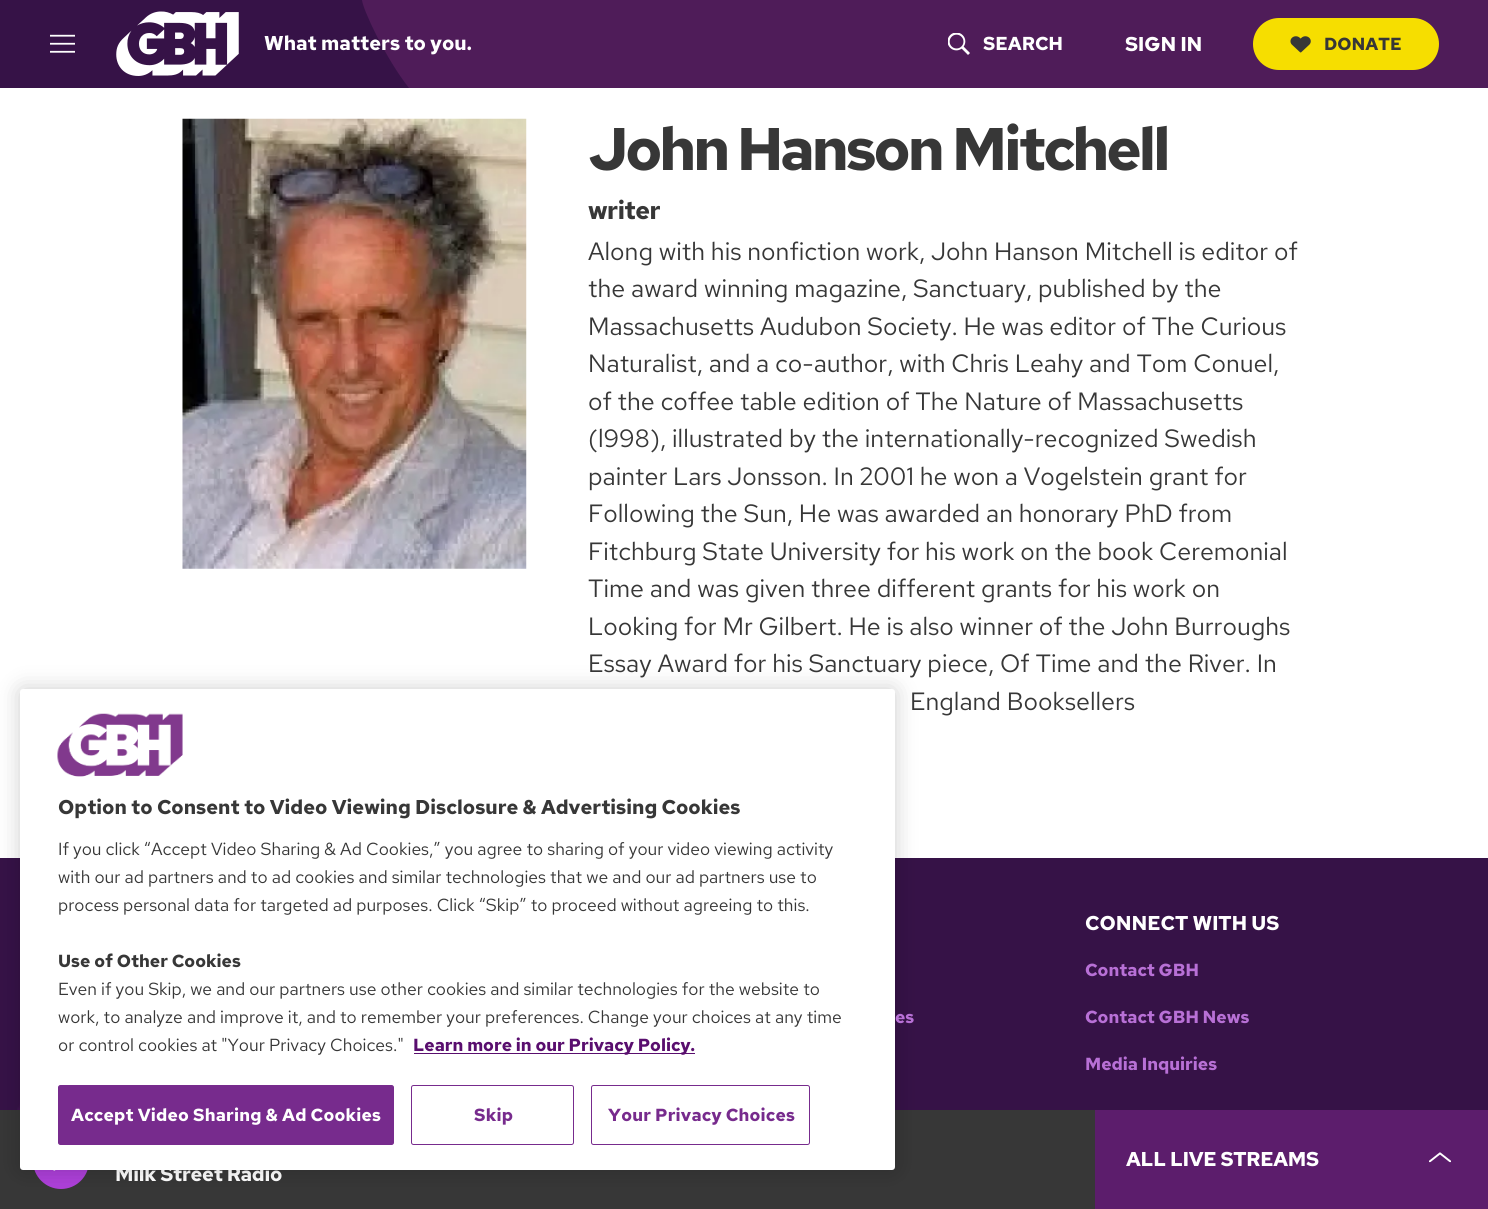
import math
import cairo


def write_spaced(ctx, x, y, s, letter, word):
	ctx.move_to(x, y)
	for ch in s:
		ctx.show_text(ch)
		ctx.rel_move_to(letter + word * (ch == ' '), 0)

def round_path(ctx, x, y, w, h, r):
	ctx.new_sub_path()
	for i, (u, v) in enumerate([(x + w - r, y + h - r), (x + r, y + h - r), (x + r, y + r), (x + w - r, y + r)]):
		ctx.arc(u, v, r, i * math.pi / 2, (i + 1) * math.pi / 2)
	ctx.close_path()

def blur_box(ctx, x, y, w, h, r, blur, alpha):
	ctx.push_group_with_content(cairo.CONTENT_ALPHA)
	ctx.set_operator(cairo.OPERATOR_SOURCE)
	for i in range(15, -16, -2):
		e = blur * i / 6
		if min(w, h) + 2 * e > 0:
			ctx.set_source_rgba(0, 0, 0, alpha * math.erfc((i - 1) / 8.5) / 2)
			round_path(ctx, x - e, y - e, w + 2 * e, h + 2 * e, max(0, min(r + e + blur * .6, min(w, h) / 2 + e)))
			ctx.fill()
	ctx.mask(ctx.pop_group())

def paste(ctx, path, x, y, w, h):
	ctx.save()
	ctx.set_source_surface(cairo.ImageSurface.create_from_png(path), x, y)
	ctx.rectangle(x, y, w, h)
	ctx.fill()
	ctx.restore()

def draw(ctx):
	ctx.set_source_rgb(1, 1, 1)
	ctx.paint()
	ctx.set_source_rgb(0.31, 0.11, 0.349)
	ctx.rectangle(362, 0, 1126, 88)
	ctx.fill()
	ctx.set_source_rgb(0.212, 0.071, 0.278)
	ctx.new_path()
	ctx.move_to(-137, 0)
	ctx.line_to(362, 0)
	ctx.curve_to(363, 10, 386, 59, 409, 88)
	ctx.line_to(-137, 88)
	ctx.close_path()
	ctx.fill()
	paste(ctx, 'media/1.png', 50, 34, 25, 19)
	paste(ctx, 'media/2.png', 116, 11, 123, 65)
	ctx.select_font_face('Red Hat Text', cairo.FONT_SLANT_NORMAL, cairo.FONT_WEIGHT_BOLD)
	ctx.set_font_size(20)
	ctx.set_source_rgb(1, 1, 1)
	ctx.move_to(264, 50)
	ctx.show_text('What matters to you.')
	paste(ctx, 'media/3.png', 948, 33, 22, 22)
	ctx.set_font_size(18.75)
	ctx.move_to(983, 50)
	ctx.show_text('SEARCH')
	ctx.set_font_size(20)
	ctx.move_to(1125, 51)
	ctx.show_text('SIGN IN')
	ctx.set_source_rgb(0.961, 0.871, 0)
	round_path(ctx, 1253, 18, 186, 52, 26)
	ctx.fill()
	paste(ctx, 'media/4.png', 1290, 36, 21, 17)
	ctx.set_font_size(17.5)
	ctx.set_source_rgb(0.216, 0.216, 0.216)
	ctx.move_to(1324, 50)
	ctx.show_text('DONATE')
	ctx.rectangle(0, 1110, 1095, 99)
	ctx.fill()
	ctx.set_source_rgb(0.361, 0.114, 0.424)
	ctx.rectangle(1095, 1110, 393, 99)
	ctx.fill()
	ctx.set_font_size(20)
	ctx.set_source_rgb(1, 1, 1)
	write_spaced(ctx, 1126, 1166, 'ALL LIVE STREAMS', -0.25, 0)
	paste(ctx, 'media/5.png', 1429, 1152, 22, 11)
	ctx.set_source_rgb(0.678, 0.251, 0.851)
	ctx.arc(61, 1161, 28, 0, 2 * math.pi)
	ctx.fill()
	paste(ctx, 'media/6.png', 53, 1170, 3, 1)
	ctx.set_source_rgb(1, 1, 1)
	write_spaced(ctx, 115, 1181, 'Milk Street Radio', -0.25, 0)
	paste(ctx, 'media/7.png', 182, 118, 345, 451)
	ctx.set_font_size(60)
	ctx.set_source_rgb(0.216, 0.216, 0.216)
	write_spaced(ctx, 588, 170, 'John Hanson Mitchell', -3, 0)
	ctx.set_font_size(25)
	write_spaced(ctx, 588, 219, 'writer', -0.5, 0)
	ctx.select_font_face('Red Hat Text')
	for x, y, s in [
		(588, 260, 'Along with his nonfiction work, John Hanson Mitchell is editor of'),
		(588, 297, 'the award winning magazine, Sanctuary, published by the'),
		(588, 335, 'Massachusetts Audubon Society. He was editor of The Curious'),
		(588, 372, 'Naturalist, and a co-author, with Chris Leahy and Tom Conuel,'),
		(588, 410, 'of the coffee table edition of The Nature of Massachusetts'),
		(588, 447, '(l998), illustrated by the internationally-recognized Swedish'),
		(588, 485, 'painter Lars Jonsson. In 2001 he won a Vogelstein grant for'),
		(588, 522, 'Following the Sun, He was awarded an honorary PhD from'),
		(588, 560, 'Fitchburg State University for his work on the book Ceremonial'),
		(588, 597, 'Time and was given three different grants for his work on'),
		(588, 635, 'Looking for Mr Gilbert. He is also winner of the John Burroughs'),
		(588, 672, 'Essay Award for his Sanctuary piece, Of Time and the River. In'),
		(910, 710, 'England Booksellers'),
	]:
		ctx.move_to(x, y)
		ctx.show_text(s)
	ctx.set_source_rgb(0.212, 0.071, 0.278)
	ctx.rectangle(0, 858, 1488, 252)
	ctx.fill()
	paste(ctx, 'media/9.png', 17, 1102, 3, 8)
	ctx.set_source_rgb(0, 0, 0)
	blur_box(ctx, 20, 689, 875, 481, 3, 11, 0.2)
	ctx.set_source_rgb(1, 1, 1)
	round_path(ctx, 20, 689, 875, 481, 3)
	ctx.fill()
	paste(ctx, 'media/8.png', 57, 713, 126, 64)
	ctx.select_font_face('Red Hat Text', cairo.FONT_SLANT_NORMAL, cairo.FONT_WEIGHT_BOLD)
	ctx.set_font_size(20)
	ctx.set_source_rgb(0.216, 0.216, 0.216)
	ctx.move_to(58, 814)
	ctx.show_text('Option to Consent to Video Viewing Disclosure & Advertising Cookies')
	ctx.select_font_face('Red Hat Text')
	ctx.set_font_size(17.5)
	for x, y, s in [
		(58, 855, 'If you click “Accept Video Sharing & Ad Cookies,” you agree to sharing of your video viewing activity'),
		(58, 883, 'with our ad partners and to ad cookies and similar technologies that we and our ad partners use to'),
		(58, 911, 'process personal data for targeted ad purposes. Click “Skip” to proceed without agreeing to this.'),
	]:
		ctx.move_to(x, y)
		ctx.show_text(s)
	ctx.select_font_face('Red Hat Text', cairo.FONT_SLANT_NORMAL, cairo.FONT_WEIGHT_BOLD)
	ctx.move_to(58, 967)
	ctx.show_text('Use of Other Cookies')
	ctx.select_font_face('Red Hat Text')
	for x, y, s in [
		(58, 995, 'Even if you Skip, we and our partners use other cookies and similar technologies for the website to'),
		(58, 1023, 'work, to analyze and improve it, and to remember your preferences. Change your choices at any time'),
		(58, 1051, 'or control cookies at "Your Privacy Choices."'),
	]:
		ctx.move_to(x, y)
		ctx.show_text(s)
	ctx.set_source_rgb(0.349, 0.055, 0.431)
	ctx.rectangle(414, 1053, 281, 1)
	ctx.fill()
	ctx.select_font_face('Red Hat Text', cairo.FONT_SLANT_NORMAL, cairo.FONT_WEIGHT_BOLD)
	ctx.move_to(413, 1051)
	ctx.show_text('Learn more in our Privacy Policy.')
	ctx.set_source_rgb(0.467, 0.169, 0.553)
	round_path(ctx, 58.5, 1085.5, 335, 59, 2)
	ctx.fill_preserve()
	ctx.set_line_width(1)
	ctx.stroke()
	ctx.set_source_rgb(1, 1, 1)
	write_spaced(ctx, 71, 1121, 'Accept Video Sharing & Ad Cookies', 0.2, 0)
	round_path(ctx, 411.5, 1085.5, 162, 59, 2)
	ctx.set_source_rgb(0.467, 0.169, 0.553)
	ctx.stroke()
	write_spaced(ctx, 474, 1121, 'Skip', 0.2, 0)
	round_path(ctx, 591.5, 1085.5, 218, 59, 2)
	ctx.stroke()
	write_spaced(ctx, 608, 1121, 'Your Privacy Choices', 0.2, 0)
	ctx.set_source_rgb(0.722, 0.439, 0.839)
	ctx.move_to(895, 1023)
	ctx.show_text('es')
	ctx.set_font_size(20)
	ctx.set_source_rgb(1, 1, 1)
	ctx.move_to(1085, 930)
	ctx.show_text('CONNECT WITH US')
	ctx.set_font_size(17.5)
	ctx.set_source_rgb(0.722, 0.439, 0.839)
	for x, y, s in [
		(1085, 976, 'Contact GBH'),
		(1085, 1023, 'Contact GBH News'),
		(1085, 1070, 'Media Inquiries'),
	]:
		ctx.move_to(x, y)
		ctx.show_text(s)


surface = cairo.ImageSurface(cairo.FORMAT_RGB24, 1488, 1209)
ctx = cairo.Context(surface)
options = cairo.FontOptions()
options.set_hint_metrics(cairo.HINT_METRICS_OFF)
options.set_hint_style(cairo.HINT_STYLE_NONE)
ctx.set_font_options(options)
ctx.set_miter_limit(4)
draw(ctx)
surface.write_to_png('image.png')
